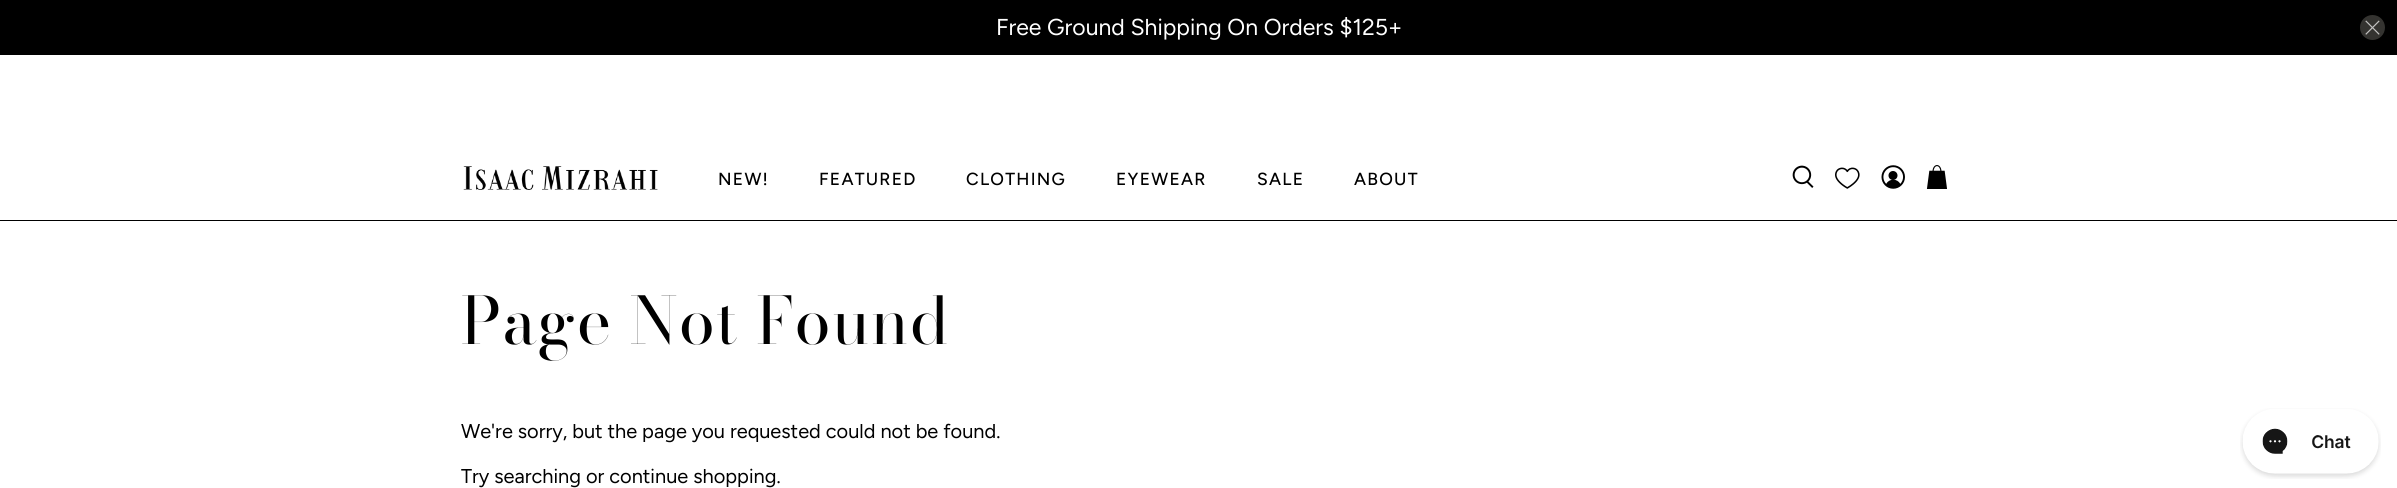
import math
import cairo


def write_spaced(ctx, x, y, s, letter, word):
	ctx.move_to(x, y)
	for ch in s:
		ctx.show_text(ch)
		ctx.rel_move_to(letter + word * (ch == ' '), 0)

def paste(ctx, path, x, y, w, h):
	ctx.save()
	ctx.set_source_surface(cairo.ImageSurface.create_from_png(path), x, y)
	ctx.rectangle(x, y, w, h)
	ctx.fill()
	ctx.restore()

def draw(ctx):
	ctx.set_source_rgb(1, 1, 1)
	ctx.paint()
	ctx.set_source_rgb(0, 0, 0)
	ctx.rectangle(0, 0, 2397, 55)
	ctx.fill()
	ctx.select_font_face('Figtree')
	ctx.set_font_size(23)
	ctx.set_source_rgb(1, 1, 1)
	ctx.move_to(996, 35)
	ctx.show_text('Free Ground Shipping On Orders $125+')
	ctx.set_source_rgb(0.204, 0.2, 0.188)
	ctx.new_path()
	ctx.arc(2372.5, 27.5, 12.5, 0, 2 * math.pi)
	ctx.fill()
	paste(ctx, 'media/1.png', 2365, 20, 15, 15)
	ctx.set_source_rgb(0, 0, 0)
	ctx.rectangle(0, 220, 2397, 1)
	ctx.fill()
	paste(ctx, 'media/2.png', 463, 166, 195, 24)
	ctx.select_font_face('Figtree Medium')
	ctx.set_font_size(17.5)
	for x, y, s in [
		(718, 185, 'NEW!'),
		(819, 185, 'FEATURED'),
		(966, 185, 'CLOTHING'),
		(1116, 185, 'EYEWEAR'),
		(1257, 185, 'SALE'),
		(1354, 185, 'ABOUT'),
	]:
		write_spaced(ctx, x, y, s, 1.25, 0)
	paste(ctx, 'media/3.png', 1792, 165, 22, 23)
	paste(ctx, 'media/4.png', 1835, 167, 25, 22)
	paste(ctx, 'media/5.png', 1881, 165, 24, 24)
	paste(ctx, 'media/6.png', 1926, 165, 21, 24)
	ctx.select_font_face('Bodoni Moda')
	ctx.set_font_size(65)
	write_spaced(ctx, 461, 344, 'Page Not Found', 1.25, 0)
	ctx.select_font_face('Figtree')
	ctx.set_font_size(20)
	ctx.move_to(461, 438)
	ctx.show_text('We\'re sorry, but the page you requested could not be found.')
	ctx.move_to(461, 483)
	ctx.show_text('Try searching or continue shopping.')
	paste(ctx, 'media/7.png', 2240, 408, 141, 71)


surface = cairo.ImageSurface(cairo.FORMAT_RGB24, 2397, 488)
ctx = cairo.Context(surface)
options = cairo.FontOptions()
options.set_hint_metrics(cairo.HINT_METRICS_OFF)
options.set_hint_style(cairo.HINT_STYLE_NONE)
ctx.set_font_options(options)
ctx.set_miter_limit(4)
draw(ctx)
surface.write_to_png('image.png')
